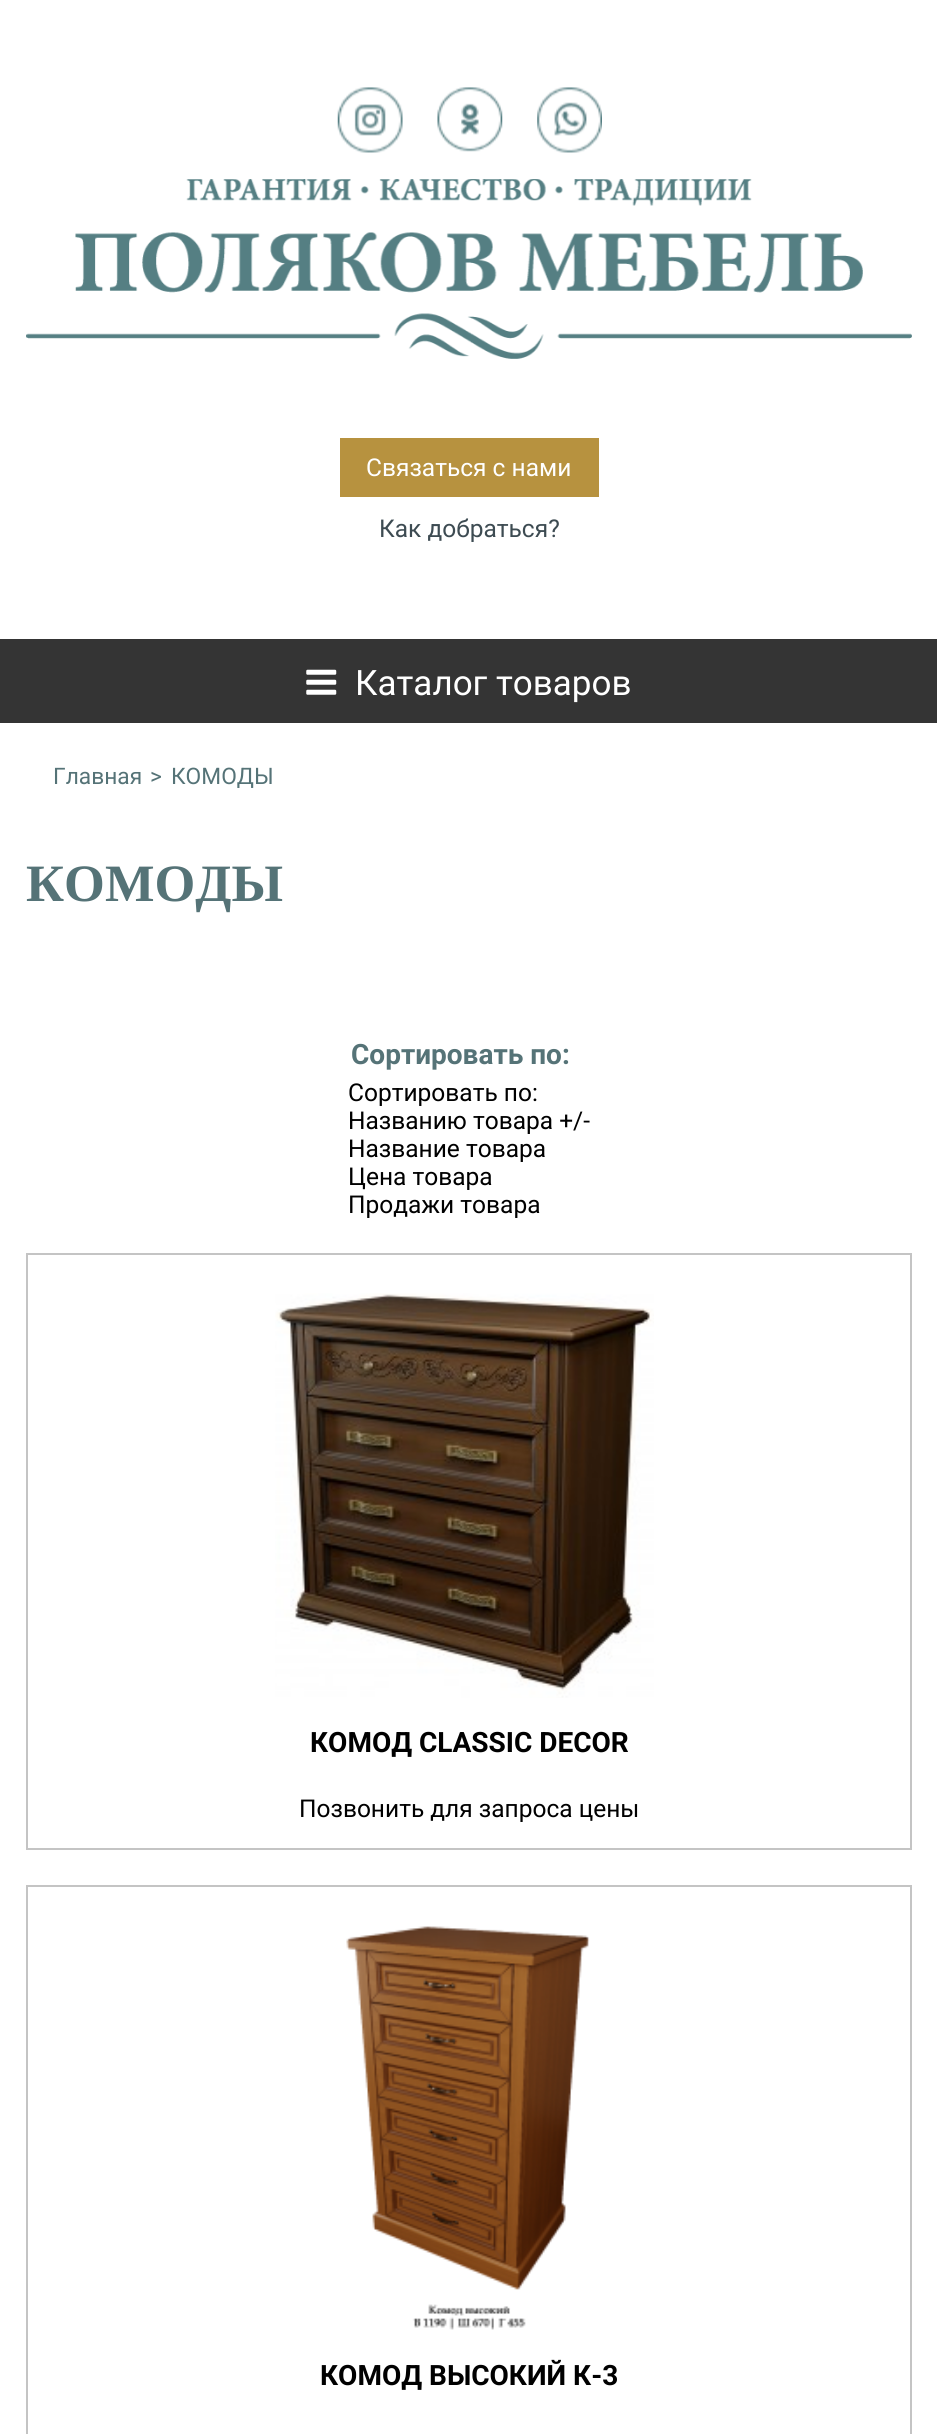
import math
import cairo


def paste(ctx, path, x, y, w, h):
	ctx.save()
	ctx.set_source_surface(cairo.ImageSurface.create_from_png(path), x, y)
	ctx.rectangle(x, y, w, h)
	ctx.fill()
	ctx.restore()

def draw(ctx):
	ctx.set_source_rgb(1, 1, 1)
	ctx.paint()
	paste(ctx, 'media/1.png', 337, 87, 66, 66)
	paste(ctx, 'media/2.png', 437, 87, 66, 65)
	paste(ctx, 'media/3.png', 537, 87, 65, 66)
	paste(ctx, 'media/4.png', 26, 179, 886, 180)
	ctx.set_source_rgb(0.718, 0.573, 0.247)
	ctx.rectangle(340, 438, 259, 59)
	ctx.fill()
	ctx.select_font_face('Roboto')
	ctx.set_font_size(24.5)
	ctx.set_source_rgb(1, 1, 1)
	ctx.move_to(366, 476)
	ctx.show_text('Связаться с нами')
	ctx.set_source_rgb(0.239, 0.294, 0.322)
	ctx.move_to(379, 537)
	ctx.show_text('Как добраться?')
	ctx.set_source_rgb(0.204, 0.204, 0.204)
	ctx.rectangle(0, 639, 937, 84)
	ctx.fill()
	paste(ctx, 'media/5.png', 306, 669, 31, 26)
	ctx.set_font_size(35)
	ctx.set_source_rgb(1, 1, 1)
	ctx.move_to(355, 695)
	ctx.show_text('Каталог товаров')
	ctx.set_font_size(22.75)
	ctx.set_source_rgb(0.333, 0.451, 0.467)
	for x, y, s in [
		(53, 784, 'Главная'),
		(150, 784, '>'),
		(171, 784, 'КОМОДЫ'),
	]:
		ctx.move_to(x, y)
		ctx.show_text(s)
	ctx.select_font_face('Liberation Serif', cairo.FONT_SLANT_NORMAL, cairo.FONT_WEIGHT_BOLD)
	ctx.set_font_size(52.5)
	ctx.move_to(26, 901)
	ctx.show_text('КОМОДЫ')
	ctx.select_font_face('Roboto', cairo.FONT_SLANT_NORMAL, cairo.FONT_WEIGHT_BOLD)
	ctx.set_font_size(28)
	ctx.move_to(351, 1064)
	ctx.show_text('Сортировать по:')
	ctx.select_font_face('Roboto')
	ctx.set_font_size(24.5)
	ctx.set_source_rgb(0, 0, 0)
	for x, y, s in [
		(348, 1101, 'Сортировать по:'),
		(348, 1129, 'Названию товара +/-'),
		(348, 1157, 'Название товара'),
		(348, 1185, 'Цена товара'),
		(348, 1213, 'Продажи товара'),
	]:
		ctx.move_to(x, y)
		ctx.show_text(s)
	ctx.rectangle(27, 1254, 884, 595)
	ctx.set_source_rgb(0.769, 0.769, 0.769)
	ctx.stroke()
	paste(ctx, 'media/6.png', 275, 1293, 379, 405)
	ctx.select_font_face('Roboto', cairo.FONT_SLANT_NORMAL, cairo.FONT_WEIGHT_BOLD)
	ctx.set_font_size(28)
	ctx.set_source_rgb(0, 0, 0)
	ctx.move_to(310, 1752)
	ctx.show_text('КОМОД CLASSIC DECOR')
	ctx.select_font_face('Roboto')
	ctx.set_font_size(24.5)
	ctx.move_to(299, 1817)
	ctx.show_text('Позвонить для запроса цены')
	ctx.rectangle(27, 1886, 884, 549)
	ctx.set_source_rgb(0.769, 0.769, 0.769)
	ctx.stroke()
	paste(ctx, 'media/7.png', 346, 1926, 244, 404)
	ctx.select_font_face('Roboto', cairo.FONT_SLANT_NORMAL, cairo.FONT_WEIGHT_BOLD)
	ctx.set_font_size(28)
	ctx.set_source_rgb(0, 0, 0)
	ctx.move_to(320, 2385)
	ctx.show_text('КОМОД ВЫСОКИЙ К-3')


surface = cairo.ImageSurface(cairo.FORMAT_RGB24, 937, 2434)
ctx = cairo.Context(surface)
options = cairo.FontOptions()
options.set_hint_metrics(cairo.HINT_METRICS_OFF)
options.set_hint_style(cairo.HINT_STYLE_NONE)
ctx.set_font_options(options)
ctx.set_miter_limit(4)
draw(ctx)
surface.write_to_png('image.png')
